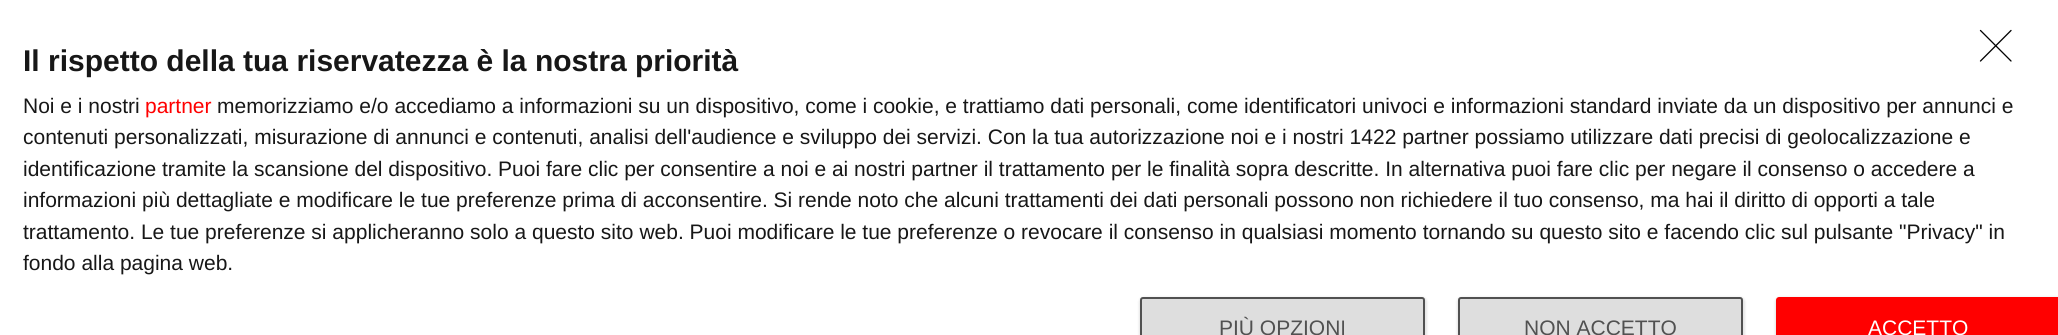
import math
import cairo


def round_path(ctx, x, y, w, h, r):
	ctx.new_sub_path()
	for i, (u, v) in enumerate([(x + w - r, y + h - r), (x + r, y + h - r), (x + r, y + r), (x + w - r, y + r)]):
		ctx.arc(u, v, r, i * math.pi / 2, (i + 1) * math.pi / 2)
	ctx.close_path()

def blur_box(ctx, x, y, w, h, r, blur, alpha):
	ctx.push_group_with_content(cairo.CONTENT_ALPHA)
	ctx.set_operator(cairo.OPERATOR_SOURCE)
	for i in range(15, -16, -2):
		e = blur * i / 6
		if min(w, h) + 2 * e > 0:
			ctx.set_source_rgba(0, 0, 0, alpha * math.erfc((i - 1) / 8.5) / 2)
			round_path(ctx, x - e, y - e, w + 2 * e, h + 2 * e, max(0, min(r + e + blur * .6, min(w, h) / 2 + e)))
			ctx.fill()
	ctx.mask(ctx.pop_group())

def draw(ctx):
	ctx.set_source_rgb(1, 1, 1)
	ctx.paint()
	ctx.new_path()
	ctx.move_to(1980.5, 30.5)
	ctx.line_to(2011, 61)
	ctx.move_to(2011, 30.5)
	ctx.line_to(1980.5, 61)
	ctx.set_source_rgb(0, 0, 0)
	ctx.set_line_width(1.3)
	ctx.set_line_cap(cairo.LINE_CAP_ROUND)
	ctx.set_line_join(cairo.LINE_JOIN_ROUND)
	ctx.stroke()
	ctx.select_font_face('Liberation Sans', cairo.FONT_SLANT_NORMAL, cairo.FONT_WEIGHT_BOLD)
	ctx.set_font_size(30)
	ctx.set_source_rgb(0.09, 0.09, 0.09)
	ctx.move_to(23, 71)
	ctx.show_text('Il rispetto della tua riservatezza è la nostra priorità')
	ctx.select_font_face('Liberation Sans')
	ctx.set_font_size(21)
	ctx.move_to(23, 113)
	ctx.show_text('Noi e i nostri')
	ctx.set_source_rgb(1, 0, 0)
	ctx.move_to(145, 113)
	ctx.show_text('partner')
	ctx.set_source_rgb(0.09, 0.09, 0.09)
	for x, y, s in [
		(217, 113, 'memorizziamo e/o accediamo a informazioni su un dispositivo, come i cookie, e trattiamo dati personali, come identificatori univoci e informazioni standard inviate da un dispositivo per annunci e'),
		(23, 144, 'contenuti personalizzati, misurazione di annunci e contenuti, analisi dell\'audience e sviluppo dei servizi. Con la tua autorizzazione noi e i nostri 1422 partner possiamo utilizzare dati precisi di geolocalizzazione e'),
		(23, 176, 'identificazione tramite la scansione del dispositivo. Puoi fare clic per consentire a noi e ai nostri partner il trattamento per le finalità sopra descritte. In alternativa puoi fare clic per negare il consenso o accedere a'),
		(23, 207, 'informazioni più dettagliate e modificare le tue preferenze prima di acconsentire. Si rende noto che alcuni trattamenti dei dati personali possono non richiedere il tuo consenso, ma hai il diritto di opporti a tale'),
		(23, 239, 'trattamento. Le tue preferenze si applicheranno solo a questo sito web. Puoi modificare le tue preferenze o revocare il consenso in qualsiasi momento tornando su questo sito e facendo clic sul pulsante "Privacy" in'),
		(23, 270, 'fondo alla pagina web.'),
	]:
		ctx.move_to(x, y)
		ctx.show_text(s)
	ctx.set_source_rgb(0, 0, 0)
	blur_box(ctx, 1139, 297, 288, 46, 5, 1, 0.1)
	ctx.set_source_rgb(0.871, 0.871, 0.871)
	ctx.new_path()
	ctx.move_to(1143, 297)
	ctx.line_to(1422, 297)
	ctx.curve_to(1423.5, 297, 1425, 298.5, 1425, 300)
	ctx.line_to(1425, 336)
	ctx.line_to(1140, 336)
	ctx.line_to(1140, 300)
	ctx.curve_to(1140, 298.5, 1141.5, 297, 1143, 297)
	ctx.close_path()
	ctx.fill()
	round_path(ctx, 1141, 298, 283, 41, 2)
	ctx.set_source_rgb(0.318, 0.318, 0.318)
	ctx.set_line_width(2)
	ctx.set_line_cap(cairo.LINE_CAP_BUTT)
	ctx.set_line_join(cairo.LINE_JOIN_MITER)
	ctx.stroke()
	ctx.move_to(1219, 335)
	ctx.show_text('PIÙ OPZIONI')
	ctx.set_source_rgb(0, 0, 0)
	blur_box(ctx, 1457, 297, 288, 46, 5, 1, 0.1)
	ctx.set_source_rgb(0.871, 0.871, 0.871)
	ctx.new_path()
	ctx.move_to(1461, 297)
	ctx.line_to(1740, 297)
	ctx.curve_to(1741.5, 297, 1743, 298.5, 1743, 300)
	ctx.line_to(1743, 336)
	ctx.line_to(1458, 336)
	ctx.line_to(1458, 300)
	ctx.curve_to(1458, 298.5, 1459.5, 297, 1461, 297)
	ctx.close_path()
	ctx.fill()
	round_path(ctx, 1459, 298, 283, 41, 2)
	ctx.set_source_rgb(0.318, 0.318, 0.318)
	ctx.stroke()
	ctx.move_to(1524, 335)
	ctx.show_text('NON ACCETTO')
	ctx.set_source_rgb(0, 0, 0)
	blur_box(ctx, 1775, 297, 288, 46, 5, 1, 0.1)
	ctx.set_source_rgb(1, 0, 0)
	ctx.new_path()
	ctx.move_to(1779, 297)
	ctx.line_to(2058, 297)
	ctx.line_to(2058, 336)
	ctx.line_to(1776, 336)
	ctx.line_to(1776, 300)
	ctx.curve_to(1776, 298.5, 1777.5, 297, 1779, 297)
	ctx.close_path()
	ctx.fill()
	ctx.set_source_rgb(1, 1, 1)
	ctx.move_to(1868, 335)
	ctx.show_text('ACCETTO')


surface = cairo.ImageSurface(cairo.FORMAT_RGB24, 2058, 335)
ctx = cairo.Context(surface)
options = cairo.FontOptions()
options.set_hint_metrics(cairo.HINT_METRICS_OFF)
options.set_hint_style(cairo.HINT_STYLE_NONE)
ctx.set_font_options(options)
ctx.set_miter_limit(4)
draw(ctx)
surface.write_to_png('image.png')
